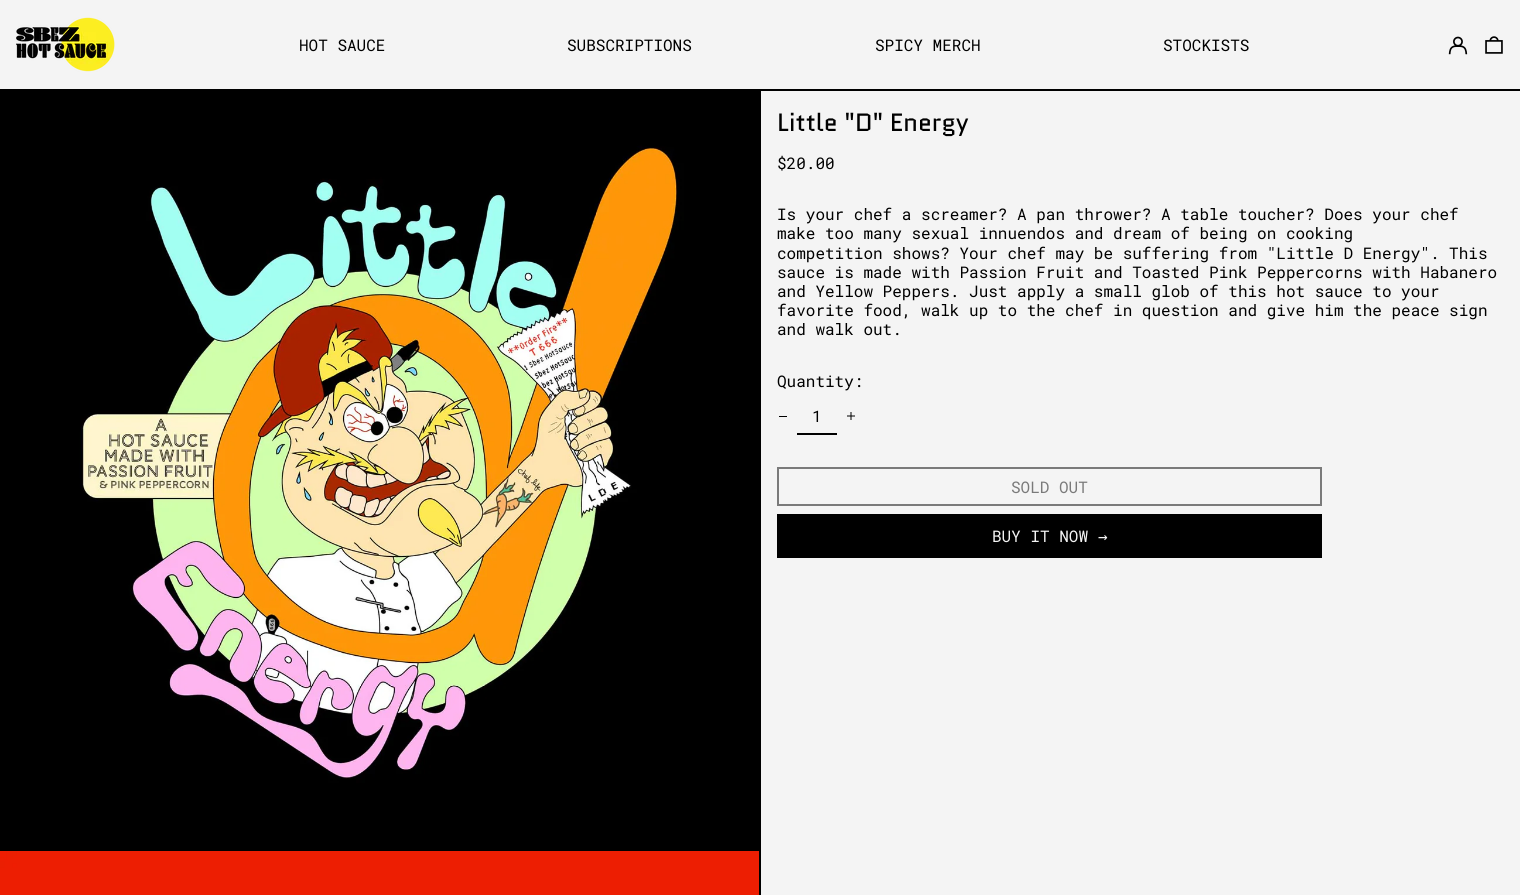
import math
import cairo


def paste(ctx, path, x, y, w, h):
	ctx.save()
	ctx.set_source_surface(cairo.ImageSurface.create_from_png(path), x, y)
	ctx.rectangle(x, y, w, h)
	ctx.fill()
	ctx.restore()

def draw(ctx):
	ctx.set_source_rgb(0, 0, 0)
	ctx.paint()
	ctx.set_source_rgb(0.957, 0.957, 0.957)
	ctx.rectangle(0, 0, 1520, 89)
	ctx.fill()
	paste(ctx, 'media/1.png', 16, 17, 99, 55)
	ctx.select_font_face('Roboto Mono')
	ctx.set_font_size(16)
	ctx.set_source_rgb(0, 0, 0)
	for x, y, s in [
		(299, 51, 'HOT SAUCE'),
		(567, 51, 'SUBSCRIPTIONS'),
		(875, 51, 'SPICY MERCH'),
		(1163, 51, 'STOCKISTS'),
	]:
		ctx.move_to(x, y)
		ctx.show_text(s)
	paste(ctx, 'media/2.png', 1448, 36, 20, 19)
	paste(ctx, 'media/3.png', 1485, 36, 18, 18)
	paste(ctx, 'media/4.png', 0, 91, 759, 758)
	paste(ctx, 'media/5.png', 0, 851, 759, 44)
	ctx.set_source_rgb(0.957, 0.957, 0.957)
	ctx.rectangle(761, 91, 759, 804)
	ctx.fill()
	ctx.select_font_face('Quantico')
	ctx.set_font_size(25)
	ctx.set_source_rgb(0, 0, 0)
	ctx.move_to(777, 131)
	ctx.show_text('Little "D" Energy')
	ctx.select_font_face('Roboto Mono')
	ctx.set_font_size(16)
	for x, y, s in [
		(777, 169, '$20.00'),
		(777, 220, 'Is your chef a screamer? A pan thrower? A table toucher? Does your chef'),
		(777, 239, 'make too many sexual innuendos and dream of being on cooking'),
		(777, 259, 'competition shows? Your chef may be suffering from "Little D Energy". This'),
		(777, 278, 'sauce is made with Passion Fruit and Toasted Pink Peppercorns with Habanero'),
		(777, 297, 'and Yellow Peppers. Just apply a small glob of this hot sauce to your'),
		(777, 316, 'favorite food, walk up to the chef in question and give him the peace sign'),
		(777, 335, 'and walk out.'),
		(777, 387, 'Quantity:'),
	]:
		ctx.move_to(x, y)
		ctx.show_text(s)
	ctx.rectangle(779, 416, 8, 1)
	ctx.fill()
	ctx.rectangle(797, 433, 40, 2)
	ctx.fill()
	ctx.move_to(812, 422)
	ctx.show_text('1')
	paste(ctx, 'media/6.png', 847, 412, 8, 8)
	ctx.rectangle(778, 468, 543, 37)
	ctx.set_source_rgb(0.478, 0.478, 0.478)
	ctx.stroke()
	ctx.move_to(1011, 493)
	ctx.show_text('SOLD OUT')
	ctx.set_source_rgb(0, 0, 0)
	ctx.rectangle(777, 514, 545, 44)
	ctx.fill()
	ctx.set_source_rgb(0.957, 0.957, 0.957)
	ctx.move_to(992, 542)
	ctx.show_text('BUY IT NOW')
	ctx.select_font_face('DejaVu Sans Mono')
	ctx.move_to(1098, 542)
	ctx.show_text('→')


surface = cairo.ImageSurface(cairo.FORMAT_RGB24, 1520, 895)
ctx = cairo.Context(surface)
options = cairo.FontOptions()
options.set_hint_metrics(cairo.HINT_METRICS_OFF)
options.set_hint_style(cairo.HINT_STYLE_NONE)
ctx.set_font_options(options)
ctx.set_miter_limit(4)
draw(ctx)
surface.write_to_png('image.png')
